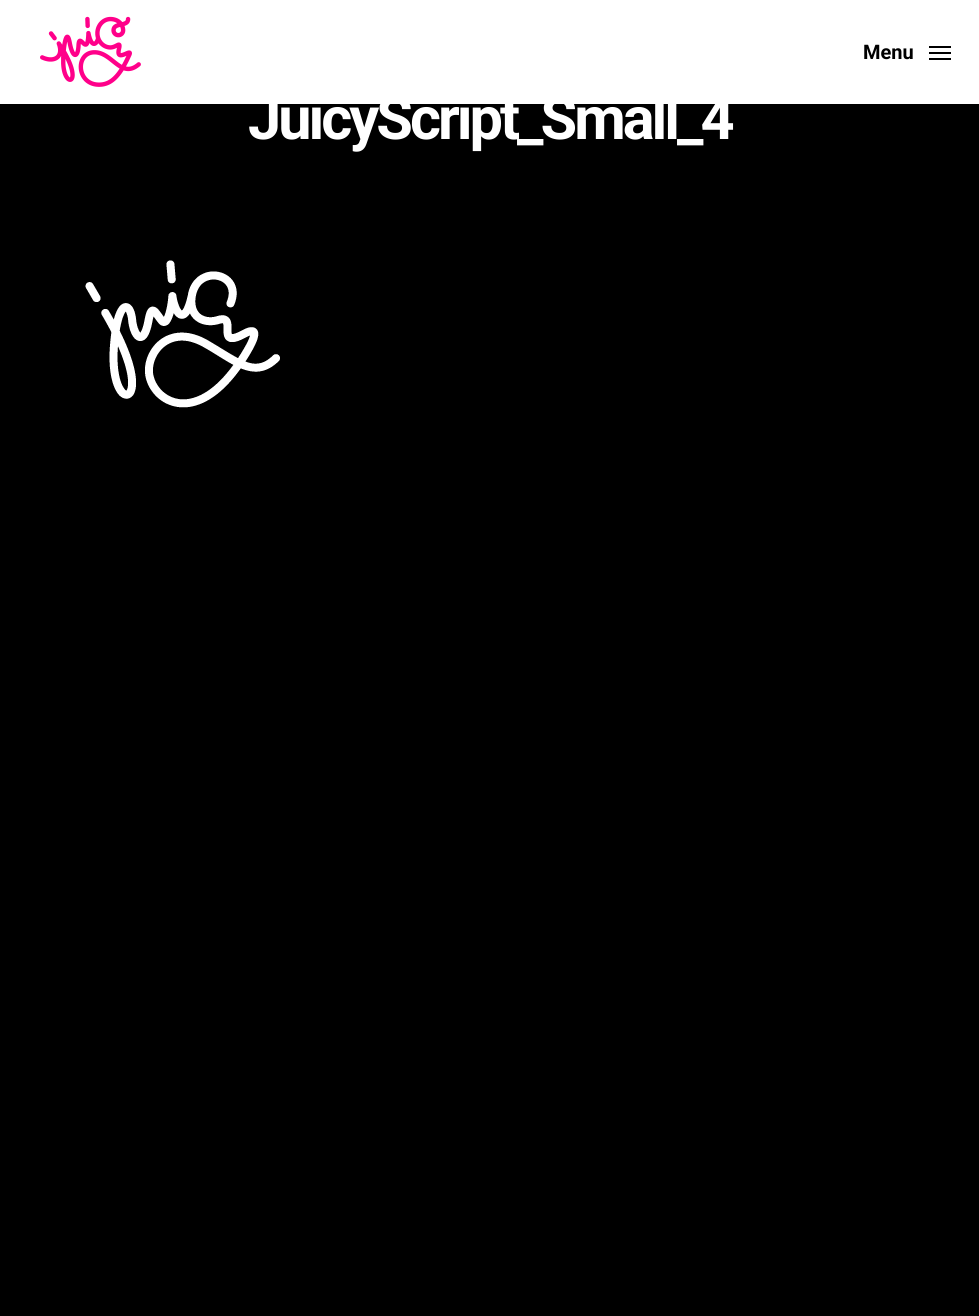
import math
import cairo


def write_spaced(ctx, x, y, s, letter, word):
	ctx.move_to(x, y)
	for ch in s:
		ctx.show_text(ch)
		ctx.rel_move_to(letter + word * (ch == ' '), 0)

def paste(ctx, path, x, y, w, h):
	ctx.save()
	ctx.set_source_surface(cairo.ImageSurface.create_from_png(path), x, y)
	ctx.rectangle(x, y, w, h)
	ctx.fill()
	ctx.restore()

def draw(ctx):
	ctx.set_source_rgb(0, 0, 0)
	ctx.paint()
	ctx.set_source_rgb(1, 1, 1)
	ctx.rectangle(0, 0, 979, 104)
	ctx.fill()
	paste(ctx, 'media/1.png', 40, 16, 101, 71)
	ctx.select_font_face('Roboto', cairo.FONT_SLANT_NORMAL, cairo.FONT_WEIGHT_BOLD)
	ctx.set_font_size(20)
	ctx.set_source_rgb(0, 0, 0)
	ctx.move_to(863, 59)
	ctx.show_text('Menu')
	ctx.rectangle(929, 46, 22, 2)
	ctx.rectangle(929, 58, 22, 2)
	ctx.rectangle(929, 52, 22, 2)
	ctx.fill()
	ctx.set_font_size(59.5)
	ctx.set_source_rgb(1, 1, 1)
	write_spaced(ctx, 248, 139, 'JuicyScript_Small_4', -3, 0)
	paste(ctx, 'media/2.png', 85, 260, 195, 148)


surface = cairo.ImageSurface(cairo.FORMAT_RGB24, 979, 1316)
ctx = cairo.Context(surface)
options = cairo.FontOptions()
options.set_hint_metrics(cairo.HINT_METRICS_OFF)
options.set_hint_style(cairo.HINT_STYLE_NONE)
ctx.set_font_options(options)
ctx.set_miter_limit(4)
draw(ctx)
surface.write_to_png('image.png')
